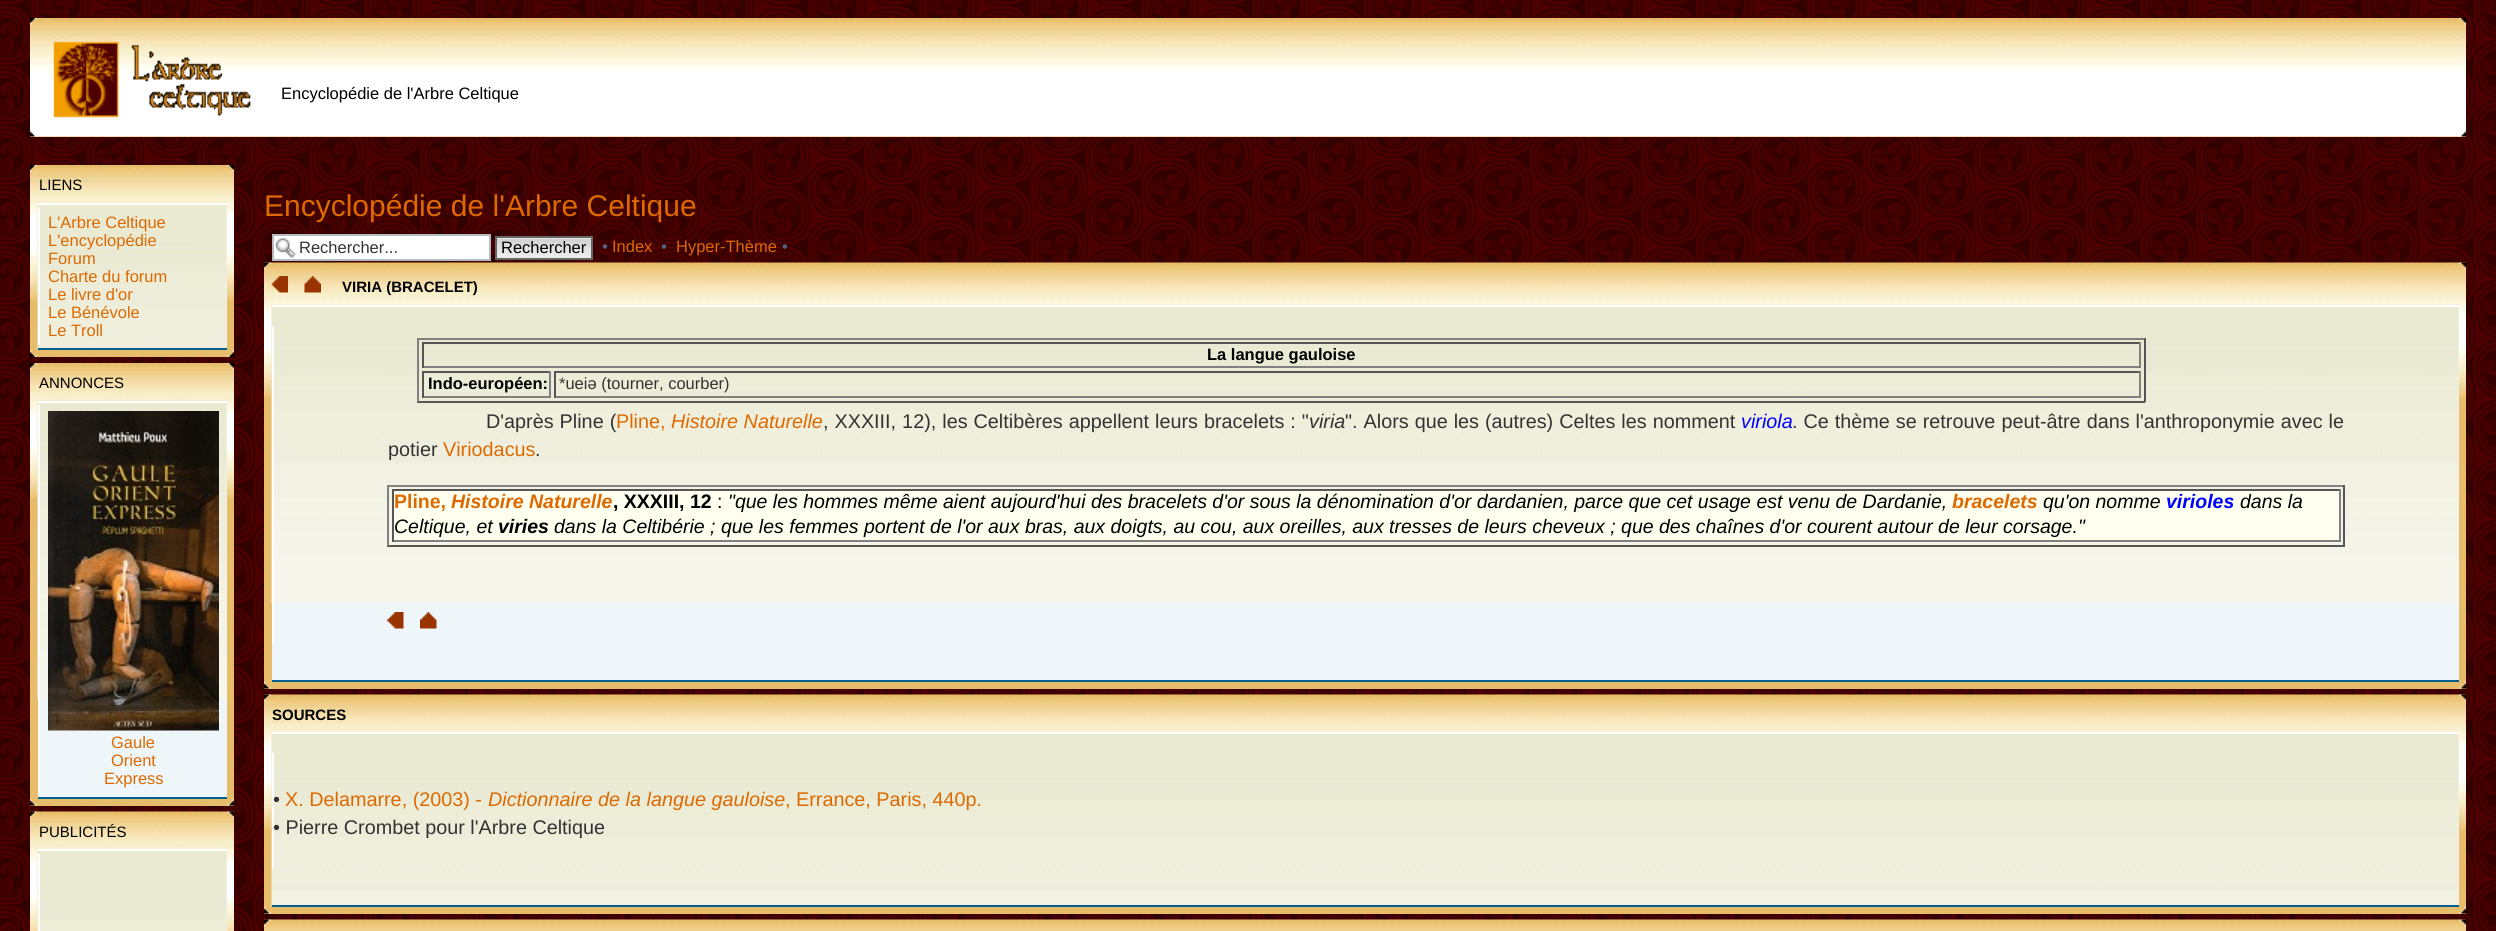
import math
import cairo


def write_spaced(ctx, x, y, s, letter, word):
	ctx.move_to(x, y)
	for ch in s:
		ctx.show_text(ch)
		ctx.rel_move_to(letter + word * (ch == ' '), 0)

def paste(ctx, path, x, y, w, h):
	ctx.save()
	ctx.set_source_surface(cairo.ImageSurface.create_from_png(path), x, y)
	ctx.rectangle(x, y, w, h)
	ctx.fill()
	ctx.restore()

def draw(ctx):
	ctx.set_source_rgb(1, 1, 1)
	ctx.paint()
	paste(ctx, 'media/1.png', 0, 0, 2496, 931)
	ctx.set_source_rgb(0.906, 0.741, 0.42)
	ctx.rectangle(30, 18, 2436, 119)
	ctx.fill()
	paste(ctx, 'media/2.png', 30, 20, 2436, 117)
	paste(ctx, 'media/3.png', 30, 18, 8, 8)
	paste(ctx, 'media/4.png', 2458, 18, 8, 8)
	paste(ctx, 'media/5.png', 53, 41, 198, 77)
	ctx.select_font_face('Liberation Sans')
	ctx.set_font_size(16.5)
	ctx.set_source_rgb(0, 0, 0)
	ctx.move_to(281, 99)
	ctx.show_text('Encyclopédie de l\'Arbre Celtique')
	paste(ctx, 'media/6.png', 30, 131, 8, 6)
	paste(ctx, 'media/7.png', 2458, 131, 8, 6)
	ctx.set_source_rgb(0.906, 0.741, 0.42)
	ctx.rectangle(30, 165, 204, 192)
	ctx.fill()
	paste(ctx, 'media/8.png', 30, 167, 204, 134)
	paste(ctx, 'media/3.png', 30, 165, 8, 8)
	paste(ctx, 'media/9.png', 226, 165, 8, 8)
	ctx.set_font_size(15)
	ctx.set_source_rgb(0, 0, 0)
	ctx.move_to(39, 190)
	ctx.show_text('LIENS')
	ctx.set_source_rgb(0.933, 0.961, 0.976)
	ctx.rectangle(226, 205, 1, 143)
	ctx.fill()
	paste(ctx, 'media/10.png', 37, 202, 190, 148)
	ctx.set_source_rgb(1, 1, 1)
	ctx.rectangle(38, 203, 189, 2)
	ctx.fill()
	ctx.set_source_rgb(0, 0.376, 0.561)
	ctx.rectangle(38, 348, 189, 2)
	ctx.fill()
	ctx.set_source_rgb(1, 1, 1)
	ctx.rectangle(38, 207, 2, 138)
	ctx.fill()
	ctx.set_font_size(16.5)
	ctx.set_source_rgb(0.867, 0.412, 0)
	for x, y, s in [
		(48, 228, 'L\'Arbre Celtique'),
		(48, 246, 'L\'encyclopédie'),
		(48, 264, 'Forum'),
		(48, 282, 'Charte du forum'),
		(48, 300, 'Le livre d\'or'),
		(48, 318, 'Le Bénévole'),
		(48, 336, 'Le Troll'),
	]:
		ctx.move_to(x, y)
		ctx.show_text(s)
	paste(ctx, 'media/11.png', 30, 349, 8, 8)
	paste(ctx, 'media/12.png', 226, 349, 8, 8)
	ctx.set_source_rgb(0.906, 0.741, 0.42)
	ctx.rectangle(30, 363, 204, 443)
	ctx.fill()
	paste(ctx, 'media/13.png', 30, 365, 204, 134)
	paste(ctx, 'media/14.png', 30, 363, 8, 8)
	paste(ctx, 'media/9.png', 226, 363, 8, 8)
	ctx.set_font_size(15)
	ctx.set_source_rgb(0, 0, 0)
	ctx.move_to(39, 388)
	ctx.show_text('ANNONCES')
	ctx.set_source_rgb(0.933, 0.961, 0.976)
	ctx.rectangle(38, 403, 189, 394)
	ctx.fill()
	paste(ctx, 'media/15.png', 37, 400, 190, 299)
	ctx.set_source_rgb(1, 1, 1)
	ctx.rectangle(38, 401, 189, 2)
	ctx.fill()
	ctx.set_source_rgb(0, 0.376, 0.561)
	ctx.rectangle(38, 797, 189, 2)
	ctx.fill()
	ctx.set_source_rgb(1, 1, 1)
	ctx.rectangle(38, 405, 2, 389)
	ctx.fill()
	paste(ctx, 'media/16.png', 48, 411, 171, 320)
	ctx.set_font_size(16.5)
	ctx.set_source_rgb(0.867, 0.412, 0)
	for x, y, s in [
		(111, 748, 'Gaule'),
		(111, 766, 'Orient'),
		(104, 784, 'Express'),
	]:
		ctx.move_to(x, y)
		ctx.show_text(s)
	paste(ctx, 'media/17.png', 30, 798, 8, 8)
	paste(ctx, 'media/18.png', 226, 798, 8, 8)
	paste(ctx, 'media/19.png', 30, 811, 204, 120)
	paste(ctx, 'media/20.png', 30, 811, 8, 8)
	paste(ctx, 'media/21.png', 226, 811, 8, 8)
	ctx.set_font_size(15)
	ctx.set_source_rgb(0, 0, 0)
	ctx.move_to(39, 837)
	ctx.show_text('PUBLICITÉS')
	ctx.set_source_rgb(0.933, 0.961, 0.976)
	ctx.rectangle(226, 851, 1, 80)
	ctx.fill()
	paste(ctx, 'media/22.png', 37, 849, 190, 82)
	ctx.set_source_rgb(1, 1, 1)
	ctx.rectangle(38, 849, 189, 2)
	ctx.fill()
	ctx.rectangle(38, 854, 2, 77)
	ctx.fill()
	ctx.set_font_size(30)
	ctx.set_source_rgb(0.867, 0.412, 0)
	ctx.move_to(264, 216)
	ctx.show_text('Encyclopédie de l\'Arbre Celtique')
	ctx.set_source_rgb(1, 1, 1)
	ctx.rectangle(274, 236, 215, 23)
	ctx.fill()
	paste(ctx, 'media/23.png', 275, 238, 21, 20)
	ctx.rectangle(273, 235, 217, 25)
	ctx.set_source_rgb(0.706, 0.729, 0.753)
	ctx.stroke()
	ctx.set_font_size(16.5)
	ctx.set_source_rgb(0.2, 0.2, 0.2)
	ctx.move_to(299, 253)
	ctx.show_text('Rechercher...')
	paste(ctx, 'media/24.png', 497, 238, 94, 20)
	ctx.rectangle(496, 237, 96, 22)
	ctx.set_source_rgb(0.4, 0.4, 0.4)
	ctx.stroke()
	ctx.set_source_rgb(0, 0, 0)
	ctx.move_to(501, 253)
	ctx.show_text('Rechercher')
	ctx.set_source_rgb(0.325, 0.392, 0.51)
	ctx.move_to(602, 252)
	ctx.show_text('•')
	ctx.set_source_rgb(0.867, 0.412, 0)
	ctx.move_to(612, 252)
	ctx.show_text('Index')
	ctx.set_source_rgb(0.325, 0.392, 0.51)
	ctx.move_to(661, 252)
	ctx.show_text('•')
	ctx.set_source_rgb(0.867, 0.412, 0)
	ctx.move_to(676, 252)
	ctx.show_text('Hyper-Thème')
	ctx.set_source_rgb(0.325, 0.392, 0.51)
	ctx.move_to(782, 252)
	ctx.show_text('•')
	ctx.set_source_rgb(0.906, 0.741, 0.42)
	ctx.rectangle(264, 399, 2202, 290)
	ctx.fill()
	paste(ctx, 'media/25.png', 264, 262, 2202, 137)
	paste(ctx, 'media/26.png', 264, 262, 8, 8)
	paste(ctx, 'media/27.png', 2458, 262, 8, 8)
	paste(ctx, 'media/28.png', 271, 276, 17, 17)
	paste(ctx, 'media/29.png', 304, 276, 17, 17)
	ctx.select_font_face('Liberation Sans', cairo.FONT_SLANT_NORMAL, cairo.FONT_WEIGHT_BOLD)
	ctx.set_font_size(15)
	ctx.set_source_rgb(0, 0, 0)
	ctx.move_to(342, 292)
	ctx.show_text('VIRIA (BRACELET)')
	ctx.set_source_rgb(0.933, 0.961, 0.976)
	ctx.rectangle(272, 307, 2187, 373)
	ctx.fill()
	paste(ctx, 'media/30.png', 271, 304, 2188, 299)
	ctx.set_source_rgb(1, 1, 1)
	ctx.rectangle(272, 305, 2187, 2)
	ctx.fill()
	ctx.set_source_rgb(0, 0.376, 0.561)
	ctx.rectangle(272, 680, 2187, 2)
	ctx.fill()
	ctx.set_source_rgb(1, 1, 1)
	ctx.rectangle(272, 326, 2, 318)
	ctx.fill()
	ctx.set_source_rgb(0.502, 0.502, 0.502)
	ctx.rectangle(417, 338, 1728, 2)
	ctx.fill()
	ctx.set_source_rgb(0.333, 0.333, 0.333)
	ctx.rectangle(2144, 338, 2, 64)
	ctx.rectangle(417, 401, 1728, 2)
	ctx.fill()
	ctx.set_source_rgb(0.502, 0.502, 0.502)
	ctx.rectangle(417, 338, 2, 64)
	ctx.fill()
	ctx.set_source_rgb(0.333, 0.333, 0.333)
	ctx.rectangle(422, 342, 1719, 2)
	ctx.fill()
	ctx.set_source_rgb(0.502, 0.502, 0.502)
	ctx.rectangle(2139, 342, 2, 26)
	ctx.rectangle(422, 366, 1719, 2)
	ctx.fill()
	ctx.set_source_rgb(0.333, 0.333, 0.333)
	ctx.rectangle(422, 342, 2, 26)
	ctx.fill()
	ctx.set_font_size(16.5)
	ctx.set_source_rgb(0, 0, 0)
	ctx.move_to(1207, 360)
	ctx.show_text('La langue gauloise')
	ctx.set_source_rgb(0.333, 0.333, 0.333)
	ctx.rectangle(422, 371, 129, 2)
	ctx.fill()
	ctx.set_source_rgb(0.502, 0.502, 0.502)
	ctx.rectangle(549, 371, 2, 27)
	ctx.rectangle(422, 396, 129, 2)
	ctx.fill()
	ctx.set_source_rgb(0.333, 0.333, 0.333)
	ctx.rectangle(422, 371, 2, 27)
	ctx.fill()
	ctx.set_source_rgb(0, 0, 0)
	ctx.move_to(428, 389)
	ctx.show_text('Indo-européen:')
	ctx.set_source_rgb(0.333, 0.333, 0.333)
	ctx.rectangle(554, 371, 1587, 2)
	ctx.fill()
	ctx.set_source_rgb(0.502, 0.502, 0.502)
	ctx.rectangle(2139, 371, 2, 27)
	ctx.rectangle(554, 396, 1587, 2)
	ctx.fill()
	ctx.set_source_rgb(0.333, 0.333, 0.333)
	ctx.rectangle(554, 371, 2, 27)
	ctx.fill()
	ctx.select_font_face('Liberation Sans')
	ctx.set_source_rgb(0.2, 0.2, 0.2)
	ctx.move_to(559, 389)
	ctx.show_text('*ueiǝ (tourner, courber)')
	ctx.set_font_size(19.8)
	write_spaced(ctx, 486, 428, 'D\'après Pline (', 0, 0.5)
	ctx.set_source_rgb(0.867, 0.412, 0)
	ctx.move_to(616, 428)
	ctx.show_text('Pline,')
	ctx.select_font_face('Liberation Sans', cairo.FONT_SLANT_ITALIC)
	ctx.move_to(671, 428)
	ctx.show_text('Histoire Naturelle')
	ctx.select_font_face('Liberation Sans')
	ctx.set_source_rgb(0.2, 0.2, 0.2)
	write_spaced(ctx, 823, 428, ', XXXIII, 12), les Celtibères appellent leurs bracelets : "', 0, 0.5)
	ctx.select_font_face('Liberation Sans', cairo.FONT_SLANT_ITALIC)
	ctx.move_to(1309, 428)
	ctx.show_text('viria')
	ctx.select_font_face('Liberation Sans')
	write_spaced(ctx, 1345, 428, '". Alors que les (autres) Celtes les nomment', 0, 0.5)
	ctx.select_font_face('Liberation Sans', cairo.FONT_SLANT_ITALIC)
	ctx.set_source_rgb(0, 0, 1)
	ctx.move_to(1741, 428)
	ctx.show_text('viriola')
	ctx.select_font_face('Liberation Sans')
	ctx.set_source_rgb(0.2, 0.2, 0.2)
	write_spaced(ctx, 1792, 428, '. Ce thème se retrouve peut-âtre dans l\'anthroponymie avec le', 0, 0.5)
	ctx.move_to(388, 456)
	ctx.show_text('potier')
	ctx.set_source_rgb(0.867, 0.412, 0)
	ctx.move_to(443, 456)
	ctx.show_text('Viriodacus')
	ctx.set_source_rgb(0.2, 0.2, 0.2)
	ctx.move_to(535, 456)
	ctx.show_text('.')
	ctx.set_source_rgb(0.502, 0.502, 0.502)
	ctx.rectangle(387, 485, 1958, 2)
	ctx.fill()
	ctx.set_source_rgb(0.333, 0.333, 0.333)
	ctx.rectangle(2343, 485, 2, 61)
	ctx.rectangle(387, 545, 1958, 2)
	ctx.fill()
	ctx.set_source_rgb(0.502, 0.502, 0.502)
	ctx.rectangle(387, 485, 2, 61)
	ctx.fill()
	ctx.set_source_rgb(1, 1, 0.941)
	ctx.rectangle(394, 491, 1945, 49)
	ctx.fill()
	ctx.set_source_rgb(0.333, 0.333, 0.333)
	ctx.rectangle(392, 489, 1948, 2)
	ctx.fill()
	ctx.set_source_rgb(0.502, 0.502, 0.502)
	ctx.rectangle(2339, 489, 2, 53)
	ctx.rectangle(392, 540, 1948, 2)
	ctx.fill()
	ctx.set_source_rgb(0.333, 0.333, 0.333)
	ctx.rectangle(392, 489, 2, 53)
	ctx.fill()
	ctx.select_font_face('Liberation Sans', cairo.FONT_SLANT_NORMAL, cairo.FONT_WEIGHT_BOLD)
	ctx.set_font_size(19.5)
	ctx.set_source_rgb(0.867, 0.412, 0)
	ctx.move_to(394, 508)
	ctx.show_text('Pline,')
	ctx.select_font_face('Liberation Sans', cairo.FONT_SLANT_ITALIC, cairo.FONT_WEIGHT_BOLD)
	ctx.move_to(451, 508)
	ctx.show_text('Histoire Naturelle')
	ctx.select_font_face('Liberation Sans', cairo.FONT_SLANT_NORMAL, cairo.FONT_WEIGHT_BOLD)
	ctx.set_source_rgb(0, 0, 0)
	ctx.move_to(613, 508)
	ctx.show_text(', XXXIII, 12')
	ctx.select_font_face('Liberation Sans')
	ctx.move_to(717, 508)
	ctx.show_text(':')
	ctx.select_font_face('Liberation Sans', cairo.FONT_SLANT_ITALIC)
	ctx.move_to(728, 508)
	ctx.show_text('"que les hommes même aient aujourd\'hui des bracelets d\'or sous la dénomination d\'or dardanien, parce que cet usage est venu de Dardanie,')
	ctx.select_font_face('Liberation Sans', cairo.FONT_SLANT_ITALIC, cairo.FONT_WEIGHT_BOLD)
	ctx.set_source_rgb(0.867, 0.412, 0)
	ctx.move_to(1952, 508)
	ctx.show_text('bracelets')
	ctx.select_font_face('Liberation Sans', cairo.FONT_SLANT_ITALIC)
	ctx.set_source_rgb(0, 0, 0)
	ctx.move_to(2043, 508)
	ctx.show_text('qu\'on nomme')
	ctx.select_font_face('Liberation Sans', cairo.FONT_SLANT_ITALIC, cairo.FONT_WEIGHT_BOLD)
	ctx.set_source_rgb(0, 0, 1)
	ctx.move_to(2166, 508)
	ctx.show_text('virioles')
	ctx.select_font_face('Liberation Sans', cairo.FONT_SLANT_ITALIC)
	ctx.set_source_rgb(0, 0, 0)
	ctx.move_to(2240, 508)
	ctx.show_text('dans la')
	ctx.move_to(394, 533)
	ctx.show_text('Celtique, et')
	ctx.select_font_face('Liberation Sans', cairo.FONT_SLANT_ITALIC, cairo.FONT_WEIGHT_BOLD)
	ctx.move_to(498, 533)
	ctx.show_text('viries')
	ctx.select_font_face('Liberation Sans', cairo.FONT_SLANT_ITALIC)
	ctx.move_to(554, 533)
	ctx.show_text('dans la Celtibérie ; que les femmes portent de l\'or aux bras, aux doigts, au cou, aux oreilles, aux tresses de leurs cheveux ; que des chaînes d\'or courent autour de leur corsage."')
	paste(ctx, 'media/31.png', 387, 612, 17, 17)
	paste(ctx, 'media/32.png', 420, 612, 17, 17)
	paste(ctx, 'media/33.png', 264, 681, 8, 8)
	paste(ctx, 'media/18.png', 2458, 681, 8, 8)
	ctx.set_source_rgb(0.906, 0.741, 0.42)
	ctx.rectangle(264, 831, 2202, 83)
	ctx.fill()
	paste(ctx, 'media/34.png', 264, 694, 2202, 137)
	paste(ctx, 'media/35.png', 264, 694, 8, 8)
	paste(ctx, 'media/36.png', 2458, 694, 8, 8)
	ctx.select_font_face('Liberation Sans', cairo.FONT_SLANT_NORMAL, cairo.FONT_WEIGHT_BOLD)
	ctx.set_font_size(15)
	ctx.set_source_rgb(0, 0, 0)
	ctx.move_to(272, 720)
	ctx.show_text('SOURCES')
	ctx.set_source_rgb(0.933, 0.961, 0.976)
	ctx.rectangle(2458, 734, 1, 171)
	ctx.fill()
	paste(ctx, 'media/37.png', 271, 732, 2188, 174)
	ctx.set_source_rgb(1, 1, 1)
	ctx.rectangle(272, 732, 2187, 2)
	ctx.fill()
	ctx.set_source_rgb(0, 0.376, 0.561)
	ctx.rectangle(272, 905, 2187, 2)
	ctx.fill()
	ctx.set_source_rgb(1, 1, 1)
	ctx.rectangle(272, 753, 2, 116)
	ctx.fill()
	ctx.select_font_face('Liberation Sans')
	ctx.set_font_size(19.8)
	ctx.set_source_rgb(0.2, 0.2, 0.2)
	ctx.move_to(273, 806)
	ctx.show_text('•')
	ctx.set_source_rgb(0.867, 0.412, 0)
	ctx.move_to(285, 806)
	ctx.show_text('X. Delamarre, (2003) -')
	ctx.select_font_face('Liberation Sans', cairo.FONT_SLANT_ITALIC)
	ctx.move_to(488, 806)
	ctx.show_text('Dictionnaire de la langue gauloise')
	ctx.select_font_face('Liberation Sans')
	ctx.move_to(785, 806)
	ctx.show_text(', Errance, Paris, 440p.')
	ctx.set_source_rgb(0.2, 0.2, 0.2)
	ctx.move_to(273, 834)
	ctx.show_text('• Pierre Crombet pour l\'Arbre Celtique')
	paste(ctx, 'media/33.png', 264, 906, 8, 8)
	paste(ctx, 'media/18.png', 2458, 906, 8, 8)
	paste(ctx, 'media/38.png', 264, 919, 2202, 12)
	paste(ctx, 'media/39.png', 264, 919, 8, 8)
	paste(ctx, 'media/40.png', 2458, 919, 8, 8)


surface = cairo.ImageSurface(cairo.FORMAT_RGB24, 2496, 931)
ctx = cairo.Context(surface)
options = cairo.FontOptions()
options.set_hint_metrics(cairo.HINT_METRICS_OFF)
options.set_hint_style(cairo.HINT_STYLE_NONE)
ctx.set_font_options(options)
ctx.set_miter_limit(4)
draw(ctx)
surface.write_to_png('image.png')
